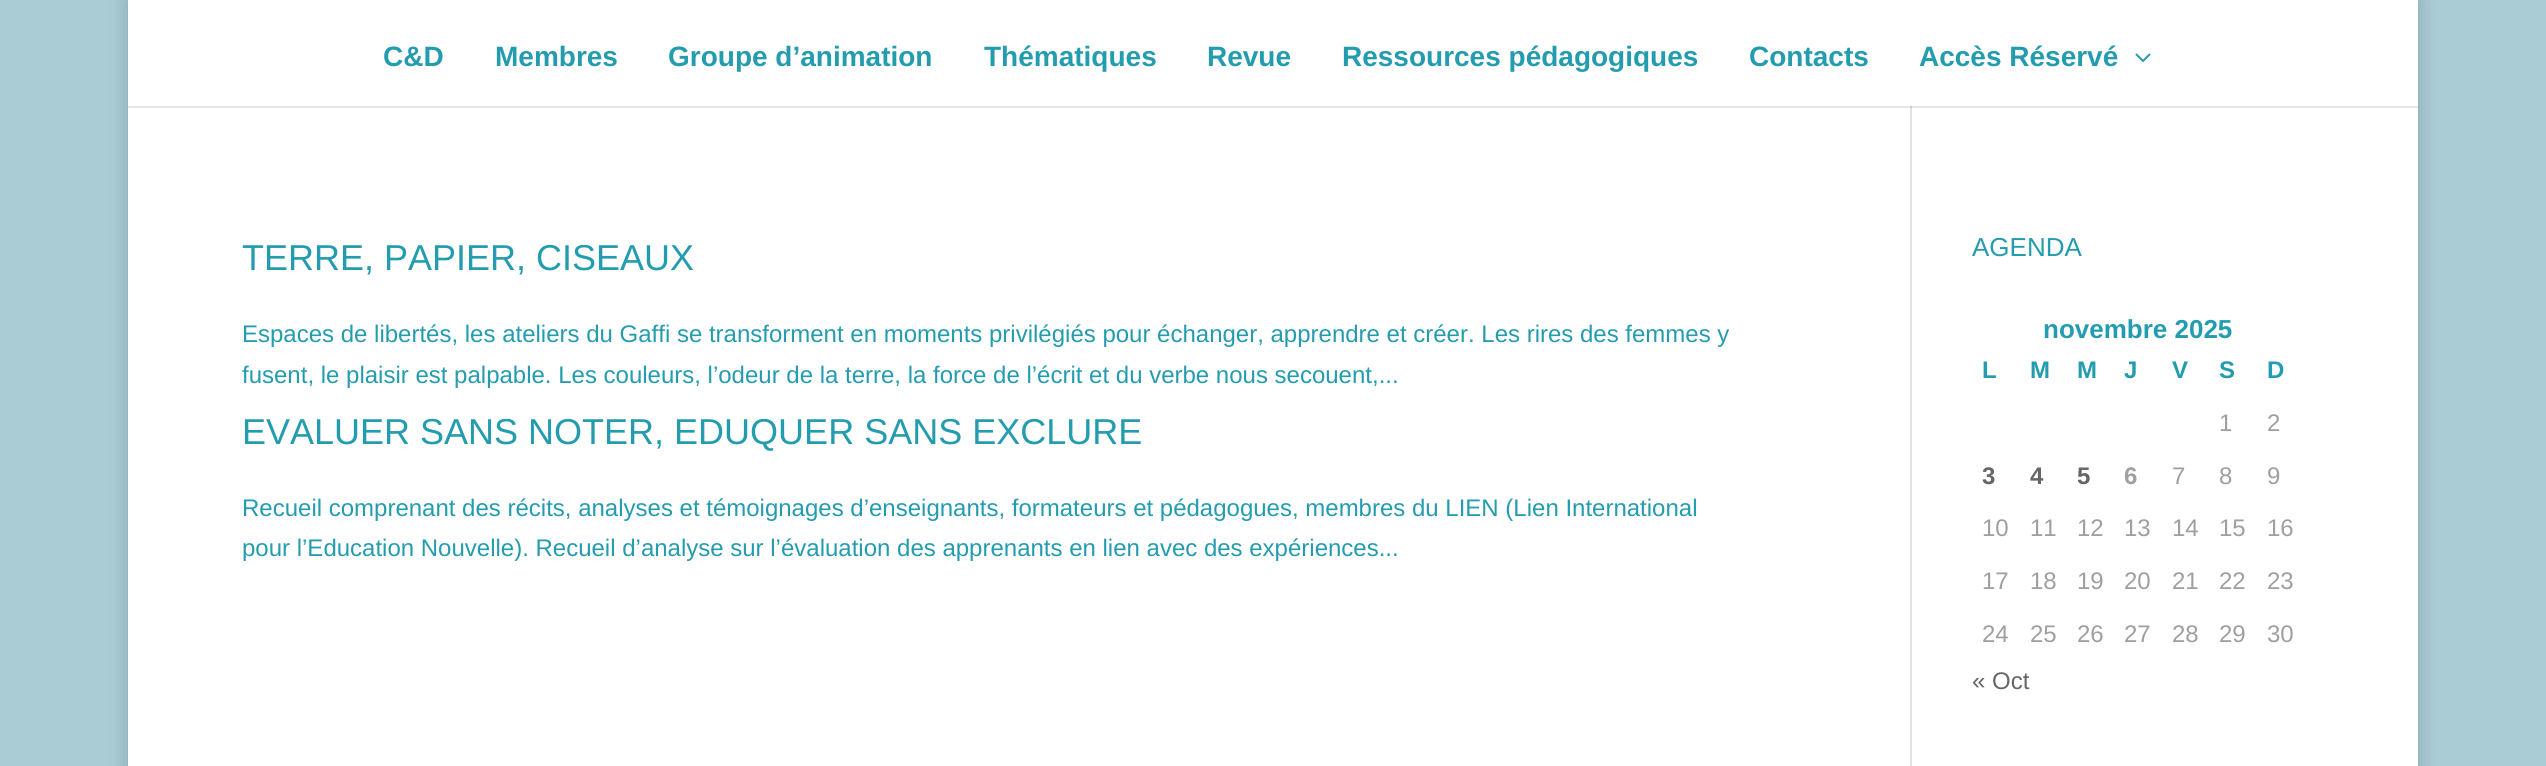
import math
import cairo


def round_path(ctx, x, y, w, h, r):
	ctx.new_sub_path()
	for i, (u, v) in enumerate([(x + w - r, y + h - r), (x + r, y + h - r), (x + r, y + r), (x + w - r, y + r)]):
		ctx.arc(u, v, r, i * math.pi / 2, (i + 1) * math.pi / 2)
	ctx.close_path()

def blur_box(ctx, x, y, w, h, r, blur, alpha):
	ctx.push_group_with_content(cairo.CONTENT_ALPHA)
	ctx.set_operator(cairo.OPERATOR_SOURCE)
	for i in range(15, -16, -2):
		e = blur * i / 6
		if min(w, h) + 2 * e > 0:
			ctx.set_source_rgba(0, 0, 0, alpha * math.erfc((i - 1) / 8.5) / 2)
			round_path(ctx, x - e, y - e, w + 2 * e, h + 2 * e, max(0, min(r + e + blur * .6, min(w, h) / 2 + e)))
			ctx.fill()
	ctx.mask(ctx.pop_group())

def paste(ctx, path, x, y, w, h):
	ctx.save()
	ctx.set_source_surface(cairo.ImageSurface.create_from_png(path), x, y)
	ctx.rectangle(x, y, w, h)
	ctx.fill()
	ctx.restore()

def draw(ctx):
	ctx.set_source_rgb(0.663, 0.8, 0.835)
	ctx.paint()
	ctx.set_source_rgb(0, 0, 0)
	blur_box(ctx, 128, 0, 2290, 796, 0, 10, 0.2)
	ctx.set_source_rgb(1, 1, 1)
	ctx.rectangle(128, 0, 2290, 106)
	ctx.fill()
	ctx.select_font_face('Liberation Sans', cairo.FONT_SLANT_NORMAL, cairo.FONT_WEIGHT_BOLD)
	ctx.set_font_size(28)
	ctx.set_source_rgb(0.141, 0.612, 0.686)
	for x, y, s in [
		(383, 66, 'C&D'),
		(495, 66, 'Membres'),
		(668, 66, 'Groupe d’animation'),
		(984, 66, 'Thématiques'),
		(1207, 66, 'Revue'),
		(1342, 66, 'Ressources pédagogiques'),
		(1749, 66, 'Contacts'),
		(1919, 66, 'Accès Réservé'),
	]:
		ctx.move_to(x, y)
		ctx.show_text(s)
	paste(ctx, 'media/1.png', 2135, 53, 16, 9)
	ctx.set_source_rgb(1, 1, 1)
	ctx.rectangle(128, 108, 2290, 658)
	ctx.fill()
	ctx.set_source_rgb(0.902, 0.902, 0.902)
	ctx.rectangle(128, 106, 2290, 2)
	ctx.fill()
	ctx.set_source_rgb(0.886, 0.886, 0.886)
	ctx.rectangle(1910, 106, 2, 660)
	ctx.fill()
	ctx.set_source_rgb(0.796, 0.796, 0.796)
	ctx.rectangle(1910, 106, 2, 2)
	ctx.fill()
	ctx.select_font_face('Liberation Sans')
	ctx.set_font_size(36)
	ctx.set_source_rgb(0.141, 0.612, 0.686)
	ctx.move_to(242, 270)
	ctx.show_text('TERRE, PAPIER, CISEAUX')
	ctx.set_font_size(24)
	ctx.move_to(242, 342)
	ctx.show_text('Espaces de libertés, les ateliers du Gaffi se transforment en moments privilégiés pour échanger, apprendre et créer. Les rires des femmes y')
	ctx.move_to(242, 383)
	ctx.show_text('fusent, le plaisir est palpable. Les couleurs, l’odeur de la terre, la force de l’écrit et du verbe nous secouent,...')
	ctx.set_font_size(36)
	ctx.move_to(242, 444)
	ctx.show_text('EVALUER SANS NOTER, EDUQUER SANS EXCLURE')
	ctx.set_font_size(24)
	ctx.move_to(242, 516)
	ctx.show_text('Recueil comprenant des récits, analyses et témoignages d’enseignants, formateurs et pédagogues, membres du LIEN (Lien International')
	ctx.move_to(242, 556)
	ctx.show_text('pour l’Education Nouvelle). Recueil d’analyse sur l’évaluation des apprenants en lien avec des expériences...')
	ctx.set_font_size(26)
	ctx.move_to(1972, 256)
	ctx.show_text('AGENDA')
	ctx.select_font_face('Liberation Sans', cairo.FONT_SLANT_NORMAL, cairo.FONT_WEIGHT_BOLD)
	ctx.move_to(2043, 338)
	ctx.show_text('novembre 2025')
	ctx.set_font_size(24)
	for x, y, s in [
		(1982, 378, 'L'),
		(2030, 378, 'M'),
		(2077, 378, 'M'),
		(2124, 378, 'J'),
		(2172, 378, 'V'),
		(2219, 378, 'S'),
		(2267, 378, 'D'),
	]:
		ctx.move_to(x, y)
		ctx.show_text(s)
	ctx.select_font_face('Liberation Sans')
	ctx.set_source_rgb(0.624, 0.624, 0.624)
	ctx.move_to(2219, 431)
	ctx.show_text('1')
	ctx.move_to(2267, 431)
	ctx.show_text('2')
	ctx.select_font_face('Liberation Sans', cairo.FONT_SLANT_NORMAL, cairo.FONT_WEIGHT_BOLD)
	ctx.set_source_rgb(0.4, 0.4, 0.4)
	for x, y, s in [
		(1982, 484, '3'),
		(2030, 484, '4'),
		(2077, 484, '5'),
	]:
		ctx.move_to(x, y)
		ctx.show_text(s)
	ctx.set_source_rgb(0.624, 0.624, 0.624)
	ctx.move_to(2124, 484)
	ctx.show_text('6')
	ctx.select_font_face('Liberation Sans')
	for x, y, s in [
		(2172, 484, '7'),
		(2219, 484, '8'),
		(2267, 484, '9'),
		(1982, 536, '10'),
		(2030, 536, '11'),
		(2077, 536, '12'),
		(2124, 536, '13'),
		(2172, 536, '14'),
		(2219, 536, '15'),
		(2267, 536, '16'),
		(1982, 589, '17'),
		(2030, 589, '18'),
		(2077, 589, '19'),
		(2124, 589, '20'),
		(2172, 589, '21'),
		(2219, 589, '22'),
		(2267, 589, '23'),
		(1982, 642, '24'),
		(2030, 642, '25'),
		(2077, 642, '26'),
		(2124, 642, '27'),
		(2172, 642, '28'),
		(2219, 642, '29'),
		(2267, 642, '30'),
	]:
		ctx.move_to(x, y)
		ctx.show_text(s)
	ctx.set_source_rgb(0.4, 0.4, 0.4)
	ctx.move_to(1972, 689)
	ctx.show_text('« Oct')


surface = cairo.ImageSurface(cairo.FORMAT_RGB24, 2546, 766)
ctx = cairo.Context(surface)
options = cairo.FontOptions()
options.set_hint_metrics(cairo.HINT_METRICS_OFF)
options.set_hint_style(cairo.HINT_STYLE_NONE)
ctx.set_font_options(options)
ctx.set_miter_limit(4)
draw(ctx)
surface.write_to_png('image.png')
